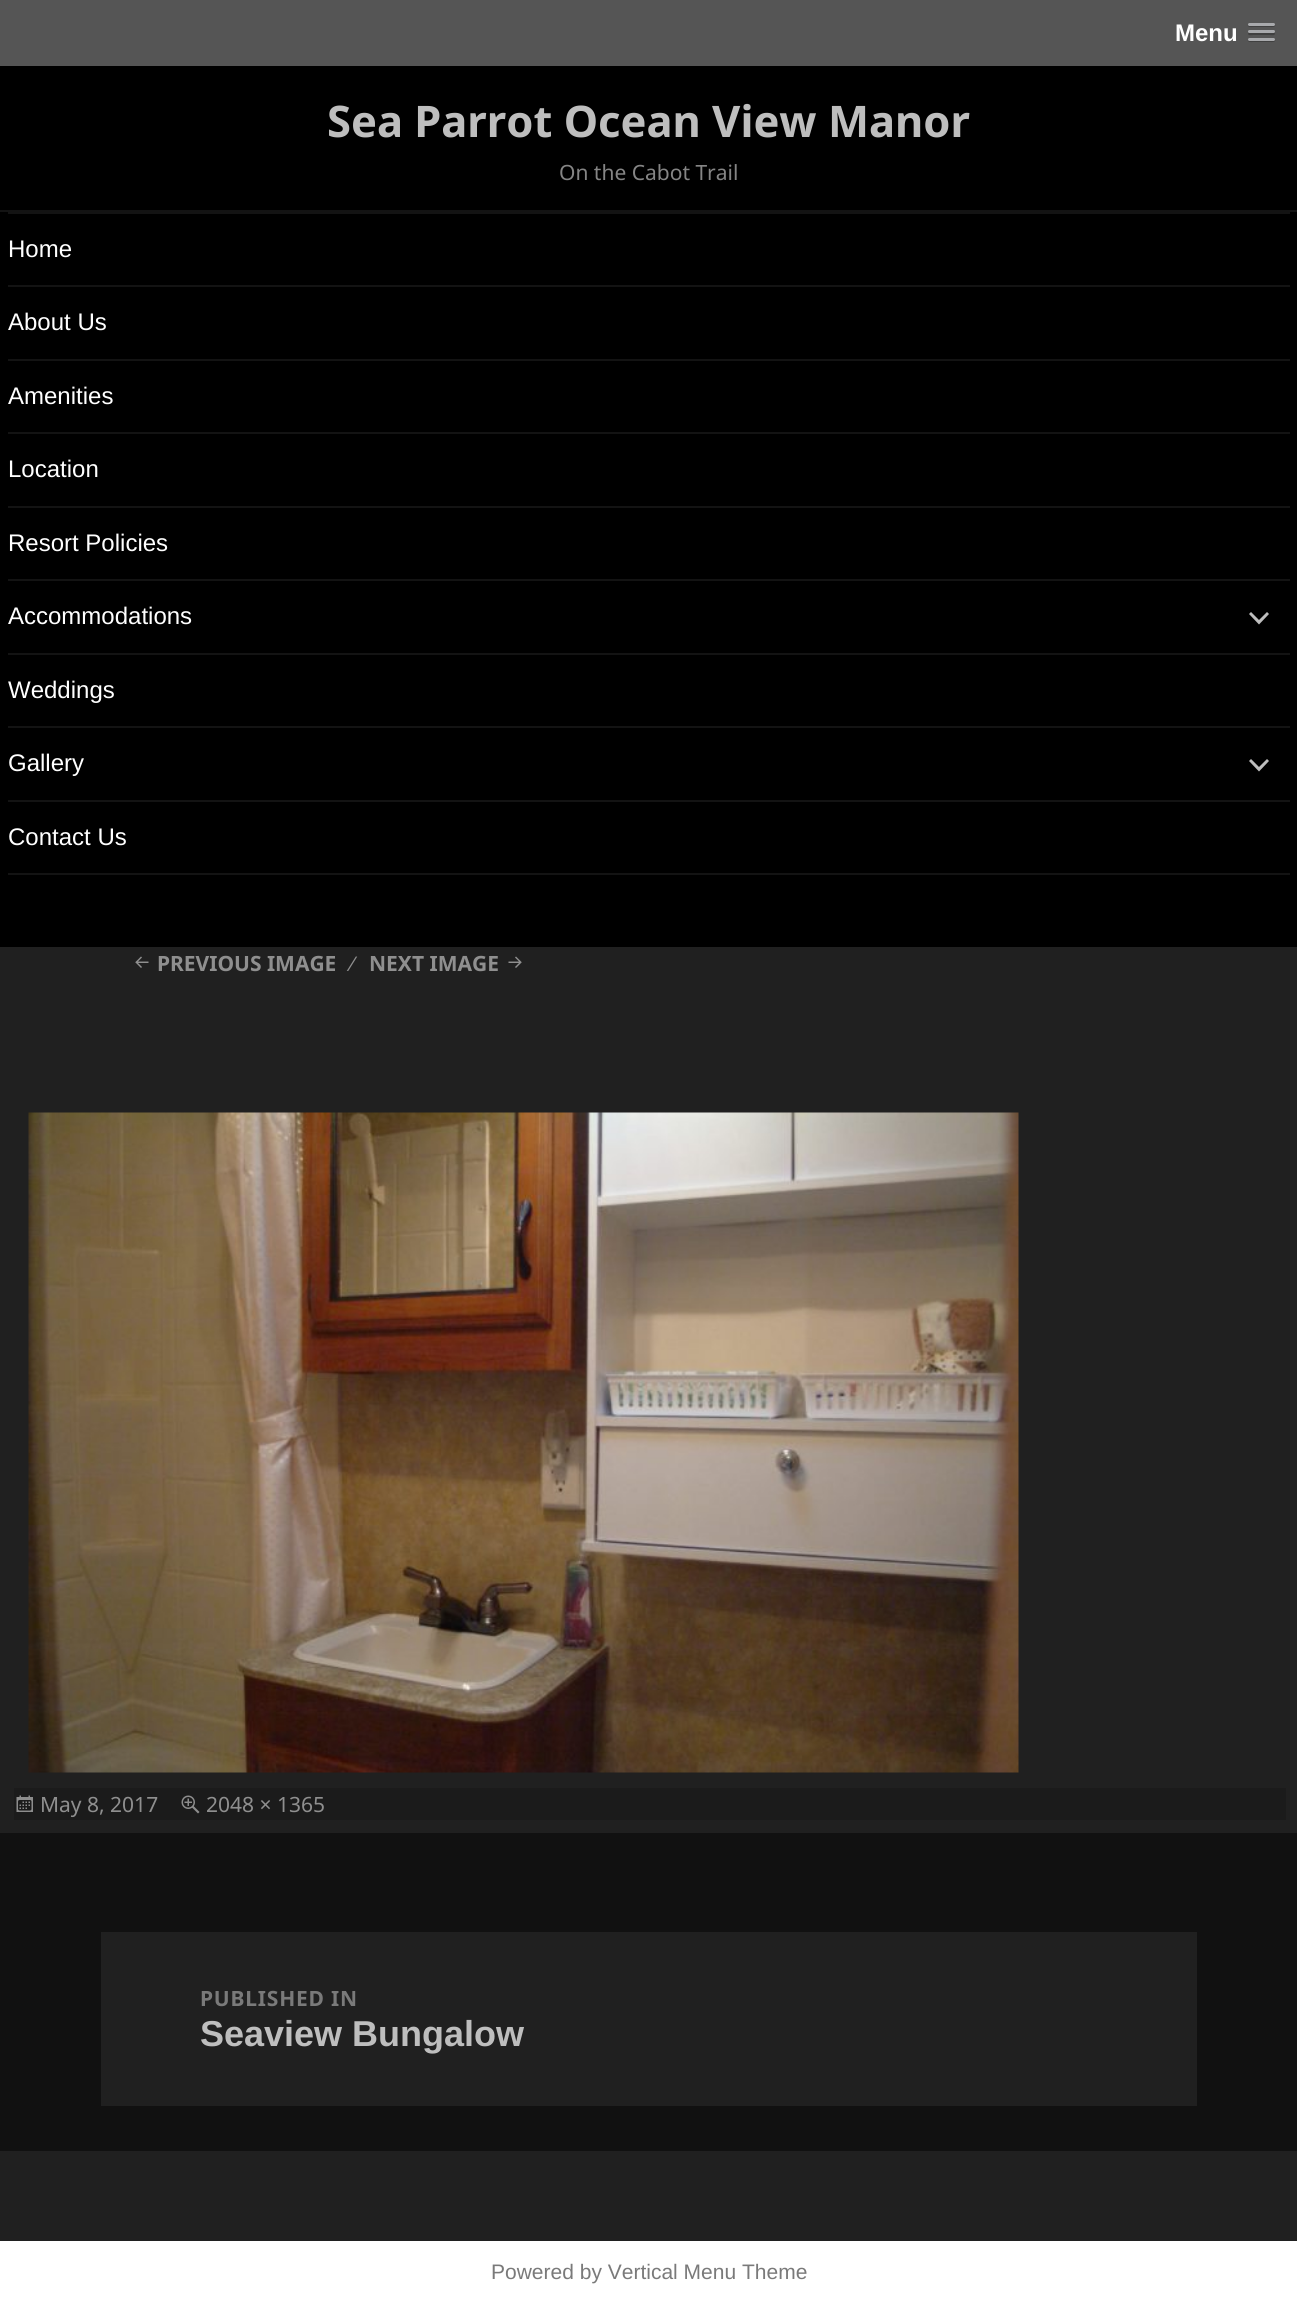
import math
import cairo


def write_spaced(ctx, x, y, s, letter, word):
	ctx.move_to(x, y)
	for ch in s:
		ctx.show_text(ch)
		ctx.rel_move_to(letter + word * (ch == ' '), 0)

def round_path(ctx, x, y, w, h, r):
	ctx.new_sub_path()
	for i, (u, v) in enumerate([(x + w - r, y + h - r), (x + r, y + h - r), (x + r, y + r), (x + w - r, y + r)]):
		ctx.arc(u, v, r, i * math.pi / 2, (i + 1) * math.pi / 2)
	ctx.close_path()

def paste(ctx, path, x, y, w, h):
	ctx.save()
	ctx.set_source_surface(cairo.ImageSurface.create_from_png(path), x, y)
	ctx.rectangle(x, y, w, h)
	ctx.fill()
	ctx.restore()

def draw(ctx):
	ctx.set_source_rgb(0.067, 0.067, 0.067)
	ctx.paint()
	ctx.set_source_rgb(0.333, 0.333, 0.333)
	ctx.rectangle(0, 0, 1297, 66)
	ctx.fill()
	ctx.select_font_face('Liberation Sans', cairo.FONT_SLANT_NORMAL, cairo.FONT_WEIGHT_BOLD)
	ctx.set_font_size(24)
	ctx.set_source_rgb(1, 1, 1)
	ctx.move_to(1175, 41)
	ctx.show_text('Menu')
	ctx.set_source_rgb(0.251, 0.251, 0.251)
	ctx.new_path()
	ctx.move_to(1248, 24.5)
	ctx.curve_to(1246.5, 28, 1253.5, 27, 1253.5, 27)
	ctx.line_to(1269.5, 27)
	ctx.curve_to(1269.5, 27, 1276.5, 28, 1275, 24.5)
	ctx.curve_to(1274.5, 25, 1274, 25.5, 1273.5, 25.5)
	ctx.line_to(1249.5, 25.5)
	ctx.curve_to(1249, 25.5, 1248.5, 25, 1248, 24.5)
	ctx.close_path()
	ctx.fill()
	ctx.set_source_rgb(0.659, 0.663, 0.675)
	round_path(ctx, 1248, 23, 27, 3, 1.5)
	ctx.fill()
	ctx.set_source_rgb(0.251, 0.251, 0.251)
	ctx.new_path()
	ctx.move_to(1248.5, 32.5)
	ctx.line_to(1248, 34)
	ctx.curve_to(1248.5, 36, 1253, 35, 1253.5, 35)
	ctx.line_to(1269.5, 35)
	ctx.curve_to(1270, 35, 1274.5, 36, 1275, 34)
	ctx.line_to(1274.5, 32.5)
	ctx.line_to(1273.5, 33)
	ctx.line_to(1249.5, 33)
	ctx.close_path()
	ctx.fill()
	ctx.set_source_rgb(0.659, 0.663, 0.675)
	round_path(ctx, 1248, 30, 27, 3, 1.5)
	ctx.fill()
	ctx.set_source_rgb(0.251, 0.251, 0.251)
	ctx.new_path()
	ctx.move_to(1248, 39.5)
	ctx.curve_to(1246.5, 43, 1253.5, 42, 1253.5, 42)
	ctx.line_to(1269.5, 42)
	ctx.curve_to(1269.5, 42, 1276.5, 43, 1275, 39.5)
	ctx.curve_to(1274.5, 40, 1274, 40.5, 1273.5, 40.5)
	ctx.line_to(1249.5, 40.5)
	ctx.curve_to(1249, 40.5, 1248.5, 40, 1248, 39.5)
	ctx.close_path()
	ctx.fill()
	ctx.set_source_rgb(0.659, 0.663, 0.675)
	round_path(ctx, 1248, 38, 27, 3, 1.5)
	ctx.fill()
	ctx.set_source_rgb(0, 0, 0)
	ctx.rectangle(0, 66, 1297, 881)
	ctx.fill()
	ctx.set_source_rgb(0.075, 0.075, 0.075)
	ctx.rectangle(0, 210, 1297, 2)
	ctx.fill()
	ctx.select_font_face('Noto Sans', cairo.FONT_SLANT_NORMAL, cairo.FONT_WEIGHT_BOLD)
	ctx.set_font_size(43.5)
	ctx.set_source_rgb(0.745, 0.745, 0.745)
	ctx.move_to(327, 137)
	ctx.show_text('Sea Parrot Ocean View Manor')
	ctx.select_font_face('Noto Sans')
	ctx.set_font_size(21)
	ctx.set_source_rgb(0.522, 0.522, 0.522)
	ctx.move_to(559, 180)
	ctx.show_text('On the Cabot Trail')
	ctx.set_source_rgb(0.075, 0.075, 0.075)
	ctx.rectangle(8, 212, 1282, 2)
	ctx.fill()
	ctx.rectangle(8, 873, 1282, 2)
	ctx.fill()
	ctx.select_font_face('Liberation Sans')
	ctx.set_font_size(24)
	ctx.set_source_rgb(1, 1, 1)
	ctx.move_to(8, 257)
	ctx.show_text('Home')
	ctx.set_source_rgb(0.075, 0.075, 0.075)
	ctx.rectangle(8, 285, 1282, 2)
	ctx.fill()
	ctx.set_source_rgb(1, 1, 1)
	ctx.move_to(8, 330)
	ctx.show_text('About Us')
	ctx.set_source_rgb(0.075, 0.075, 0.075)
	ctx.rectangle(8, 359, 1282, 2)
	ctx.fill()
	ctx.set_source_rgb(1, 1, 1)
	ctx.move_to(8, 404)
	ctx.show_text('Amenities')
	ctx.set_source_rgb(0.075, 0.075, 0.075)
	ctx.rectangle(8, 432, 1282, 2)
	ctx.fill()
	ctx.set_source_rgb(1, 1, 1)
	ctx.move_to(8, 477)
	ctx.show_text('Location')
	ctx.set_source_rgb(0.075, 0.075, 0.075)
	ctx.rectangle(8, 506, 1282, 2)
	ctx.fill()
	ctx.set_source_rgb(1, 1, 1)
	ctx.move_to(8, 551)
	ctx.show_text('Resort Policies')
	ctx.set_source_rgb(0.075, 0.075, 0.075)
	ctx.rectangle(8, 579, 1282, 2)
	ctx.fill()
	ctx.set_source_rgb(1, 1, 1)
	ctx.move_to(8, 624)
	ctx.show_text('Accommodations')
	ctx.set_source_rgb(0.745, 0.745, 0.745)
	ctx.new_path()
	ctx.move_to(1267, 612)
	ctx.line_to(1269, 614)
	ctx.line_to(1259, 624.5)
	ctx.line_to(1249, 614)
	ctx.line_to(1251, 612)
	ctx.line_to(1259, 620)
	ctx.close_path()
	ctx.fill()
	ctx.set_source_rgb(0.075, 0.075, 0.075)
	ctx.rectangle(8, 653, 1282, 2)
	ctx.fill()
	ctx.set_source_rgb(1, 1, 1)
	ctx.move_to(8, 698)
	ctx.show_text('Weddings')
	ctx.set_source_rgb(0.075, 0.075, 0.075)
	ctx.rectangle(8, 726, 1282, 2)
	ctx.fill()
	ctx.set_source_rgb(1, 1, 1)
	ctx.move_to(8, 771)
	ctx.show_text('Gallery')
	ctx.set_source_rgb(0.745, 0.745, 0.745)
	ctx.new_path()
	ctx.move_to(1267, 759)
	ctx.line_to(1269, 761)
	ctx.line_to(1259, 771.5)
	ctx.line_to(1249, 761)
	ctx.line_to(1251, 759)
	ctx.line_to(1259, 767)
	ctx.close_path()
	ctx.fill()
	ctx.set_source_rgb(0.075, 0.075, 0.075)
	ctx.rectangle(8, 800, 1282, 2)
	ctx.fill()
	ctx.set_source_rgb(1, 1, 1)
	ctx.move_to(8, 845)
	ctx.show_text('Contact Us')
	ctx.set_source_rgb(0.125, 0.125, 0.125)
	ctx.rectangle(0, 947, 1297, 886)
	ctx.fill()
	paste(ctx, 'media/1.png', 135, 956, 14, 12)
	ctx.select_font_face('Noto Sans', cairo.FONT_SLANT_NORMAL, cairo.FONT_WEIGHT_BOLD)
	ctx.set_font_size(21)
	ctx.set_source_rgb(0.561, 0.561, 0.561)
	ctx.move_to(157, 971)
	ctx.show_text('PREVIOUS IMAGE')
	ctx.select_font_face('Liberation Sans')
	ctx.move_to(351, 971)
	ctx.show_text('∕')
	ctx.select_font_face('Noto Sans', cairo.FONT_SLANT_NORMAL, cairo.FONT_WEIGHT_BOLD)
	ctx.move_to(369, 971)
	ctx.show_text('NEXT IMAGE')
	paste(ctx, 'media/2.png', 508, 956, 14, 12)
	paste(ctx, 'media/3.png', 28, 1112, 991, 661)
	ctx.set_source_rgb(0.106, 0.106, 0.106)
	ctx.rectangle(14, 1788, 1272, 32)
	ctx.fill()
	paste(ctx, 'media/4.png', 16, 1795, 17, 17)
	ctx.select_font_face('Noto Sans')
	ctx.set_source_rgb(0.561, 0.561, 0.561)
	ctx.move_to(40, 1812)
	ctx.show_text('May 8, 2017')
	paste(ctx, 'media/5.png', 181, 1795, 19, 19)
	ctx.move_to(206, 1812)
	ctx.show_text('2048 × 1365')
	ctx.set_source_rgb(0.125, 0.125, 0.125)
	ctx.rectangle(101, 1932, 1096, 174)
	ctx.fill()
	ctx.select_font_face('Noto Sans', cairo.FONT_SLANT_NORMAL, cairo.FONT_WEIGHT_BOLD)
	ctx.set_source_rgb(0.478, 0.478, 0.478)
	write_spaced(ctx, 200, 2006, 'PUBLISHED IN', 0.8, 0)
	ctx.select_font_face('Liberation Sans', cairo.FONT_SLANT_NORMAL, cairo.FONT_WEIGHT_BOLD)
	ctx.set_font_size(36)
	ctx.set_source_rgb(0.745, 0.745, 0.745)
	ctx.move_to(200, 2046)
	ctx.show_text('Seaview Bungalow')
	ctx.set_source_rgb(0.125, 0.125, 0.125)
	ctx.rectangle(0, 2151, 1297, 90)
	ctx.fill()
	ctx.set_source_rgb(1, 1, 1)
	ctx.rectangle(0, 2241, 1297, 60)
	ctx.fill()
	ctx.select_font_face('Liberation Sans')
	ctx.set_font_size(21)
	ctx.set_source_rgb(0.478, 0.478, 0.478)
	ctx.move_to(491, 2279)
	ctx.show_text('Powered by Vertical Menu Theme')


surface = cairo.ImageSurface(cairo.FORMAT_RGB24, 1297, 2301)
ctx = cairo.Context(surface)
options = cairo.FontOptions()
options.set_hint_metrics(cairo.HINT_METRICS_OFF)
options.set_hint_style(cairo.HINT_STYLE_NONE)
ctx.set_font_options(options)
ctx.set_miter_limit(4)
draw(ctx)
surface.write_to_png('image.png')
